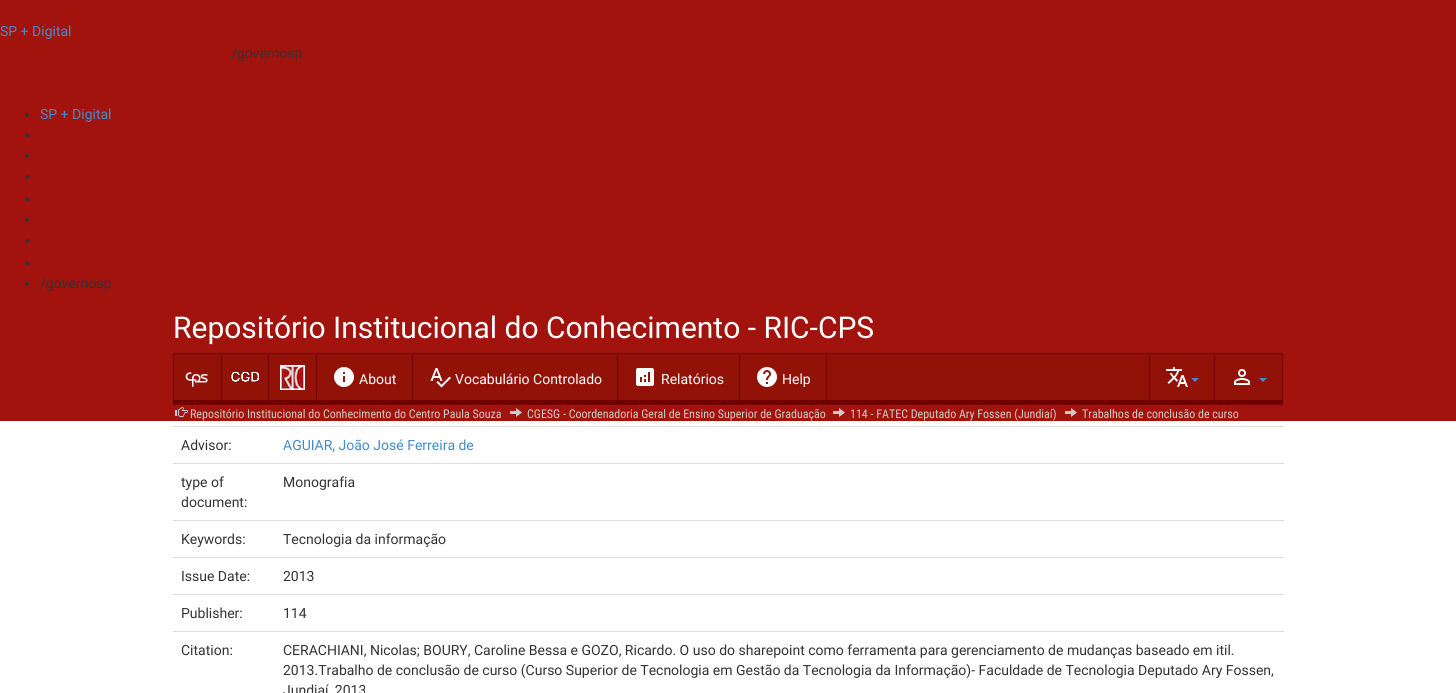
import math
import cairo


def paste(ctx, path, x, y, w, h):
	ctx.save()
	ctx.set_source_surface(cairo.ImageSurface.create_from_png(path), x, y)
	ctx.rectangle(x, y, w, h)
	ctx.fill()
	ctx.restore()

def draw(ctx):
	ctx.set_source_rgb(1, 1, 1)
	ctx.paint()
	ctx.set_source_rgb(0.639, 0.075, 0.051)
	ctx.rectangle(0, 0, 1456, 421)
	ctx.fill()
	ctx.select_font_face('Roboto')
	ctx.set_font_size(14)
	ctx.set_source_rgb(0.259, 0.545, 0.792)
	ctx.move_to(0, 36)
	ctx.show_text('SP + Digital')
	ctx.set_source_rgb(0.2, 0.2, 0.2)
	ctx.move_to(231, 58)
	ctx.show_text('/governosp')
	ctx.new_path()
	ctx.arc(27, 115, 2, 0, 2 * math.pi)
	ctx.fill()
	ctx.set_source_rgb(0.259, 0.545, 0.792)
	ctx.move_to(40, 119)
	ctx.show_text('SP + Digital')
	ctx.set_source_rgb(0.2, 0.2, 0.2)
	ctx.new_path()
	ctx.arc(27, 135, 2, 0, 2 * math.pi)
	ctx.fill()
	ctx.arc(27, 156, 2, 0, 2 * math.pi)
	ctx.fill()
	ctx.arc(27, 177, 2, 0, 2 * math.pi)
	ctx.fill()
	ctx.arc(27, 199, 2, 0, 2 * math.pi)
	ctx.fill()
	ctx.arc(27, 220, 2, 0, 2 * math.pi)
	ctx.fill()
	ctx.arc(27, 241, 2, 0, 2 * math.pi)
	ctx.fill()
	ctx.arc(27, 263, 2, 0, 2 * math.pi)
	ctx.fill()
	ctx.arc(27, 284, 2, 0, 2 * math.pi)
	ctx.fill()
	ctx.move_to(40, 288)
	ctx.show_text('/governosp')
	ctx.set_font_size(30)
	ctx.set_source_rgb(1, 1, 1)
	ctx.move_to(173, 338)
	ctx.show_text('Repositório Institucional do Conhecimento - RIC-CPS')
	ctx.set_source_rgb(0.573, 0.071, 0.035)
	ctx.rectangle(174, 354, 1108, 46)
	ctx.fill()
	ctx.set_source_rgb(0.443, 0, 0)
	ctx.rectangle(173, 353, 1110, 1)
	ctx.rectangle(1282, 353, 1, 52)
	ctx.rectangle(173, 400, 1110, 5)
	ctx.rectangle(173, 353, 1, 52)
	ctx.rectangle(221, 354, 1, 47)
	ctx.fill()
	paste(ctx, 'media/1.png', 185, 372, 23, 15)
	ctx.rectangle(268, 354, 1, 46)
	ctx.fill()
	paste(ctx, 'media/2.png', 231, 371, 28, 11)
	ctx.rectangle(316, 354, 1, 47)
	ctx.fill()
	paste(ctx, 'media/3.png', 280, 365, 25, 25)
	ctx.rectangle(412, 354, 1, 46)
	ctx.fill()
	paste(ctx, 'media/4.png', 334, 367, 20, 20)
	ctx.set_font_size(14)
	ctx.set_source_rgb(1, 1, 1)
	ctx.move_to(359, 384)
	ctx.show_text('About')
	ctx.set_source_rgb(0.443, 0, 0)
	ctx.rectangle(617, 354, 1, 46)
	ctx.fill()
	paste(ctx, 'media/5.png', 430, 368, 21, 20)
	ctx.set_source_rgb(1, 1, 1)
	ctx.move_to(455, 384)
	ctx.show_text('Vocabulário Controlado')
	ctx.set_source_rgb(0.443, 0, 0)
	ctx.rectangle(739, 354, 1, 46)
	ctx.fill()
	paste(ctx, 'media/6.png', 636, 368, 18, 18)
	ctx.set_source_rgb(1, 1, 1)
	ctx.move_to(661, 384)
	ctx.show_text('Relatórios')
	ctx.set_source_rgb(0.443, 0, 0)
	ctx.rectangle(826, 354, 1, 46)
	ctx.fill()
	paste(ctx, 'media/7.png', 757, 367, 20, 20)
	ctx.set_source_rgb(1, 1, 1)
	ctx.move_to(782, 384)
	ctx.show_text('Help')
	ctx.set_source_rgb(0.443, 0, 0)
	ctx.rectangle(1149, 354, 1, 46)
	ctx.fill()
	paste(ctx, 'media/8.png', 1166, 367, 22, 20)
	ctx.set_source_rgb(0.259, 0.545, 0.792)
	ctx.new_path()
	ctx.move_to(1191, 378)
	ctx.line_to(1199, 378)
	ctx.line_to(1195, 382)
	ctx.close_path()
	ctx.fill()
	ctx.set_source_rgb(0.443, 0, 0)
	ctx.rectangle(1214, 354, 1, 46)
	ctx.fill()
	paste(ctx, 'media/9.png', 1234, 369, 16, 16)
	ctx.set_source_rgb(0.259, 0.545, 0.792)
	ctx.new_path()
	ctx.move_to(1259, 378)
	ctx.line_to(1267, 378)
	ctx.line_to(1263, 382)
	ctx.close_path()
	ctx.fill()
	paste(ctx, 'media/10.png', 175, 406, 13, 11)
	ctx.select_font_face('Roboto Condensed')
	ctx.set_font_size(12)
	ctx.set_source_rgb(0.8, 0.8, 0.8)
	ctx.move_to(190, 418)
	ctx.show_text('Repositório Institucional do Conhecimento do Centro Paula Souza')
	paste(ctx, 'media/11.png', 510, 408, 12, 9)
	ctx.move_to(527, 418)
	ctx.show_text('CGESG - Coordenadoria Geral de Ensino Superior de Graduação')
	paste(ctx, 'media/11.png', 833, 408, 12, 9)
	ctx.move_to(850, 418)
	ctx.show_text('114 - FATEC Deputado Ary Fossen (Jundiaí)')
	paste(ctx, 'media/11.png', 1065, 408, 12, 9)
	ctx.move_to(1082, 418)
	ctx.show_text('Trabalhos de conclusão de curso')
	ctx.select_font_face('Roboto')
	ctx.set_font_size(14)
	ctx.set_source_rgb(0.2, 0.2, 0.2)
	ctx.move_to(181, 450)
	ctx.show_text('Advisor:')
	ctx.set_source_rgb(0.867, 0.867, 0.867)
	ctx.rectangle(173, 426, 1111, 1)
	ctx.fill()
	ctx.set_source_rgb(0.259, 0.545, 0.792)
	ctx.move_to(283, 450)
	ctx.show_text('AGUIAR, João José Ferreira de')
	ctx.set_source_rgb(0.2, 0.2, 0.2)
	ctx.move_to(181, 487)
	ctx.show_text('type of')
	ctx.move_to(181, 507)
	ctx.show_text('document:')
	ctx.set_source_rgb(0.867, 0.867, 0.867)
	ctx.rectangle(173, 463, 1111, 1)
	ctx.fill()
	ctx.set_source_rgb(0.2, 0.2, 0.2)
	ctx.move_to(283, 487)
	ctx.show_text('Monografia')
	ctx.move_to(181, 544)
	ctx.show_text('Keywords:')
	ctx.set_source_rgb(0.867, 0.867, 0.867)
	ctx.rectangle(173, 520, 1111, 1)
	ctx.fill()
	ctx.set_source_rgb(0.2, 0.2, 0.2)
	ctx.move_to(283, 544)
	ctx.show_text('Tecnologia da informação')
	ctx.move_to(181, 581)
	ctx.show_text('Issue Date:')
	ctx.set_source_rgb(0.867, 0.867, 0.867)
	ctx.rectangle(173, 557, 1111, 1)
	ctx.fill()
	ctx.set_source_rgb(0.2, 0.2, 0.2)
	ctx.move_to(283, 581)
	ctx.show_text('2013')
	ctx.move_to(181, 618)
	ctx.show_text('Publisher:')
	ctx.set_source_rgb(0.867, 0.867, 0.867)
	ctx.rectangle(173, 594, 1111, 1)
	ctx.fill()
	ctx.set_source_rgb(0.2, 0.2, 0.2)
	ctx.move_to(283, 618)
	ctx.show_text('114')
	ctx.move_to(181, 655)
	ctx.show_text('Citation:')
	ctx.set_source_rgb(0.867, 0.867, 0.867)
	ctx.rectangle(173, 631, 1111, 1)
	ctx.fill()
	ctx.set_source_rgb(0.2, 0.2, 0.2)
	for x, y, s in [
		(283, 655, 'CERACHIANI, Nicolas; BOURY, Caroline Bessa e GOZO, Ricardo. O uso do sharepoint como ferramenta para gerenciamento de mudanças baseado em itil.'),
		(283, 675, '2013.Trabalho de conclusão de curso (Curso Superior de Tecnologia em Gestão da Tecnologia da Informação)- Faculdade de Tecnologia Deputado Ary Fossen,'),
		(283, 695, 'Jundiaí, 2013'),
	]:
		ctx.move_to(x, y)
		ctx.show_text(s)


surface = cairo.ImageSurface(cairo.FORMAT_RGB24, 1456, 693)
ctx = cairo.Context(surface)
options = cairo.FontOptions()
options.set_hint_metrics(cairo.HINT_METRICS_OFF)
options.set_hint_style(cairo.HINT_STYLE_NONE)
ctx.set_font_options(options)
ctx.set_miter_limit(4)
draw(ctx)
surface.write_to_png('image.png')
